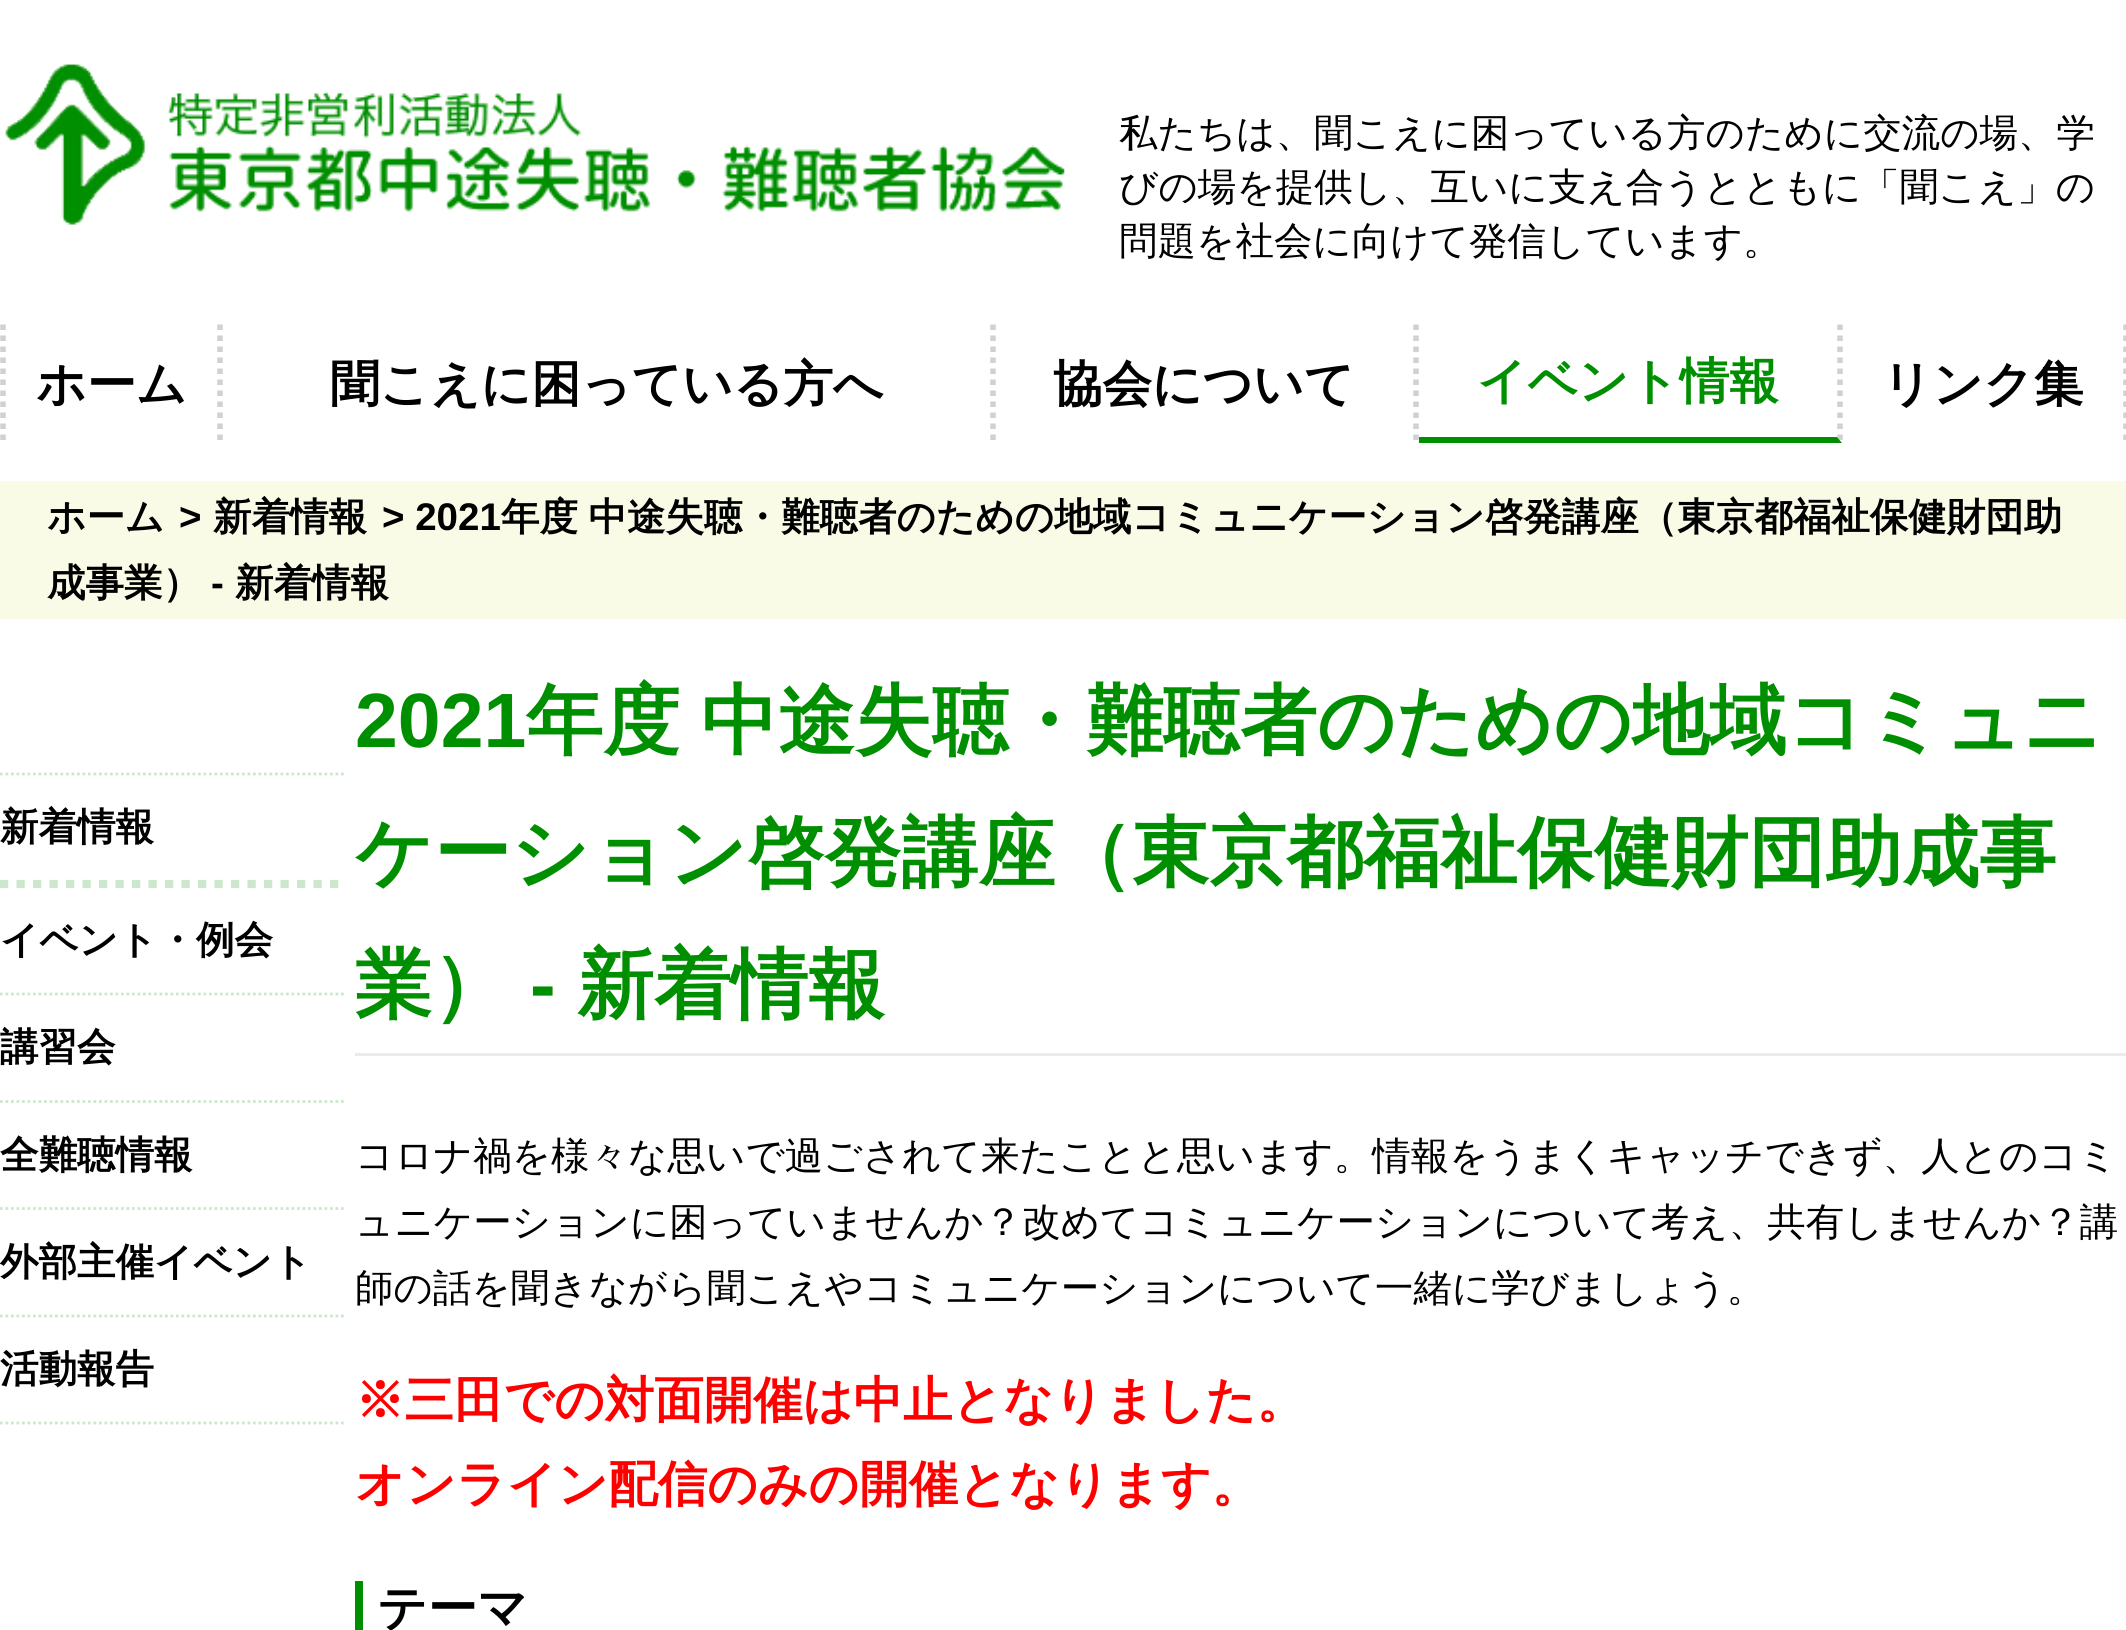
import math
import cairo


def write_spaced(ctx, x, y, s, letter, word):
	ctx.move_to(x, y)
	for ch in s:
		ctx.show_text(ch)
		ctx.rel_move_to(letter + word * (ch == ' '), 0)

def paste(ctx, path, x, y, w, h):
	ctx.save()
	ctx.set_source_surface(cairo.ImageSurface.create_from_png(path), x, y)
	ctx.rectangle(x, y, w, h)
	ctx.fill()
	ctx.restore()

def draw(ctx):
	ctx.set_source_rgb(1, 1, 1)
	ctx.paint()
	paste(ctx, 'media/1.png', 5, 63, 1060, 162)
	ctx.select_font_face('WenQuanYi Zen Hei Medium')
	ctx.set_font_size(38.5)
	ctx.set_source_rgb(0, 0, 0)
	for x, y, s in [
		(1119, 146, '私たちは、聞こえに困っている方のために交流の場、学'),
		(1119, 200, 'びの場を提供し、互いに支え合うとともに「聞こえ」の'),
		(1119, 254, '問題を社会に向けて発信しています。'),
	]:
		ctx.move_to(x, y)
		ctx.show_text(s)
	ctx.new_path()
	ctx.move_to(220, 324.5)
	ctx.line_to(220, 443)
	ctx.set_source_rgb(0.82, 0.82, 0.82)
	ctx.set_line_width(5.5)
	ctx.set_dash([5.5, 5.5])
	ctx.stroke()
	ctx.new_path()
	ctx.move_to(3, 324.5)
	ctx.line_to(3, 443)
	ctx.stroke()
	ctx.select_font_face('WenQuanYi Zen Hei', cairo.FONT_SLANT_NORMAL, cairo.FONT_WEIGHT_BOLD)
	ctx.set_font_size(49.5)
	ctx.set_source_rgb(0, 0, 0)
	ctx.move_to(36, 401)
	ctx.show_text('ホーム')
	ctx.new_path()
	ctx.move_to(993, 324.5)
	ctx.line_to(993, 443)
	ctx.set_source_rgb(0.82, 0.82, 0.82)
	ctx.stroke()
	ctx.set_source_rgb(0, 0, 0)
	ctx.move_to(330, 401)
	ctx.show_text('聞こえに困っている方へ')
	ctx.new_path()
	ctx.move_to(1416, 324.5)
	ctx.line_to(1416, 443)
	ctx.set_source_rgb(0.82, 0.82, 0.82)
	ctx.stroke()
	ctx.set_source_rgb(0, 0, 0)
	ctx.move_to(1053, 401)
	ctx.show_text('協会について')
	ctx.new_path()
	ctx.move_to(1840, 324.5)
	ctx.line_to(1840, 443)
	ctx.set_source_rgb(0.82, 0.82, 0.82)
	ctx.stroke()
	ctx.set_source_rgb(0, 0.561, 0)
	ctx.new_path()
	ctx.move_to(1842, 443)
	ctx.line_to(1419, 443)
	ctx.line_to(1419, 437)
	ctx.line_to(1837, 437)
	ctx.close_path()
	ctx.fill()
	ctx.move_to(1477, 398)
	ctx.show_text('イベント情報')
	ctx.new_path()
	ctx.move_to(2126, 324.5)
	ctx.line_to(2126, 443)
	ctx.set_source_rgb(0.82, 0.82, 0.82)
	ctx.stroke()
	ctx.set_source_rgb(0, 0, 0)
	ctx.move_to(1882, 401)
	ctx.show_text('リンク集')
	ctx.set_source_rgb(0.976, 0.984, 0.906)
	ctx.rectangle(0, 481, 2126, 138)
	ctx.fill()
	ctx.set_font_size(38.5)
	ctx.set_source_rgb(0, 0, 0)
	ctx.move_to(47, 530)
	ctx.show_text('ホーム')
	ctx.select_font_face('Liberation Sans', cairo.FONT_SLANT_NORMAL, cairo.FONT_WEIGHT_BOLD)
	ctx.move_to(179, 530)
	ctx.show_text('>')
	ctx.select_font_face('WenQuanYi Zen Hei', cairo.FONT_SLANT_NORMAL, cairo.FONT_WEIGHT_BOLD)
	ctx.move_to(213, 530)
	ctx.show_text('新着情報')
	ctx.select_font_face('Liberation Sans', cairo.FONT_SLANT_NORMAL, cairo.FONT_WEIGHT_BOLD)
	ctx.move_to(382, 530)
	ctx.show_text('> 2021')
	ctx.select_font_face('WenQuanYi Zen Hei', cairo.FONT_SLANT_NORMAL, cairo.FONT_WEIGHT_BOLD)
	write_spaced(ctx, 501, 530, '年度 中途失聴・難聴者のための地域コミュニケーション啓発講座（東京都福祉保健財団助', 0, -1)
	ctx.move_to(47, 596)
	ctx.show_text('成事業）')
	ctx.select_font_face('Liberation Sans', cairo.FONT_SLANT_NORMAL, cairo.FONT_WEIGHT_BOLD)
	ctx.move_to(211, 596)
	ctx.show_text('-')
	ctx.select_font_face('WenQuanYi Zen Hei', cairo.FONT_SLANT_NORMAL, cairo.FONT_WEIGHT_BOLD)
	ctx.move_to(235, 596)
	ctx.show_text('新着情報')
	ctx.new_path()
	ctx.move_to(0, 774)
	ctx.line_to(344, 774)
	ctx.set_source_rgb(0.8, 0.91, 0.8)
	ctx.set_line_width(2.8)
	ctx.set_dash([2.75, 2.75])
	ctx.stroke()
	ctx.new_path()
	ctx.move_to(0, 884)
	ctx.line_to(344, 884)
	ctx.set_line_width(8.2)
	ctx.set_dash([8.25, 8.25])
	ctx.stroke()
	ctx.set_source_rgb(0, 0, 0)
	ctx.move_to(0, 840)
	ctx.show_text('新着情報')
	ctx.new_path()
	ctx.move_to(0, 994)
	ctx.line_to(344, 994)
	ctx.set_source_rgb(0.8, 0.91, 0.8)
	ctx.set_line_width(2.8)
	ctx.set_dash([2.75, 2.75])
	ctx.stroke()
	ctx.set_source_rgb(0, 0, 0)
	ctx.move_to(0, 953)
	ctx.show_text('イベント・例会')
	ctx.new_path()
	ctx.move_to(0, 1101.5)
	ctx.line_to(344, 1101.5)
	ctx.set_source_rgb(0.8, 0.91, 0.8)
	ctx.stroke()
	ctx.set_source_rgb(0, 0, 0)
	ctx.move_to(0, 1060)
	ctx.show_text('講習会')
	ctx.new_path()
	ctx.move_to(0, 1208.5)
	ctx.line_to(344, 1208.5)
	ctx.set_source_rgb(0.8, 0.91, 0.8)
	ctx.stroke()
	ctx.set_source_rgb(0, 0, 0)
	ctx.move_to(0, 1168)
	ctx.show_text('全難聴情報')
	ctx.new_path()
	ctx.move_to(0, 1316)
	ctx.line_to(344, 1316)
	ctx.set_source_rgb(0.8, 0.91, 0.8)
	ctx.stroke()
	ctx.set_source_rgb(0, 0, 0)
	ctx.move_to(0, 1275)
	ctx.show_text('外部主催イベント')
	ctx.new_path()
	ctx.move_to(0, 1423)
	ctx.line_to(344, 1423)
	ctx.set_source_rgb(0.8, 0.91, 0.8)
	ctx.stroke()
	ctx.set_source_rgb(0, 0, 0)
	ctx.move_to(0, 1382)
	ctx.show_text('活動報告')
	ctx.set_source_rgb(0.918, 0.918, 0.918)
	ctx.rectangle(355, 1053, 1771, 3)
	ctx.fill()
	ctx.select_font_face('Liberation Sans', cairo.FONT_SLANT_NORMAL, cairo.FONT_WEIGHT_BOLD)
	ctx.set_font_size(77)
	ctx.set_source_rgb(0, 0.561, 0)
	ctx.move_to(355, 747)
	ctx.show_text('2021')
	ctx.select_font_face('WenQuanYi Zen Hei', cairo.FONT_SLANT_NORMAL, cairo.FONT_WEIGHT_BOLD)
	write_spaced(ctx, 526, 747, '年度 中途失聴・難聴者のための地域コミュニ', 0, -2)
	ctx.move_to(355, 879)
	ctx.show_text('ケーション啓発講座（東京都福祉保健財団助成事')
	ctx.move_to(355, 1011)
	ctx.show_text('業）')
	ctx.select_font_face('Liberation Sans', cairo.FONT_SLANT_NORMAL, cairo.FONT_WEIGHT_BOLD)
	ctx.move_to(530, 1011)
	ctx.show_text('-')
	ctx.select_font_face('WenQuanYi Zen Hei', cairo.FONT_SLANT_NORMAL, cairo.FONT_WEIGHT_BOLD)
	ctx.move_to(577, 1011)
	ctx.show_text('新着情報')
	ctx.select_font_face('WenQuanYi Zen Hei Medium')
	ctx.set_font_size(38.5)
	ctx.set_source_rgb(0, 0, 0)
	for x, y, s in [
		(355, 1169, 'コロナ禍を様々な思いで過ごされて来たことと思います。情報をうまくキャッチできず、人とのコミ'),
		(355, 1235, 'ュニケーションに困っていませんか？改めてコミュニケーションについて考え、共有しませんか？講'),
		(355, 1301, '師の話を聞きながら聞こえやコミュニケーションについて一緒に学びましょう。'),
	]:
		ctx.move_to(x, y)
		ctx.show_text(s)
	ctx.select_font_face('WenQuanYi Zen Hei', cairo.FONT_SLANT_NORMAL, cairo.FONT_WEIGHT_BOLD)
	ctx.set_font_size(49.5)
	ctx.set_source_rgb(1, 0, 0)
	ctx.move_to(355, 1417)
	ctx.show_text('※三田での対面開催は中止となりました。')
	ctx.move_to(355, 1501)
	ctx.show_text('オンライン配信のみの開催となります。')
	ctx.set_source_rgb(0, 0.561, 0)
	ctx.rectangle(355, 1581, 8, 49)
	ctx.fill()
	ctx.set_source_rgb(0, 0, 0)
	ctx.move_to(377, 1625)
	ctx.show_text('テーマ')


surface = cairo.ImageSurface(cairo.FORMAT_RGB24, 2126, 1630)
ctx = cairo.Context(surface)
options = cairo.FontOptions()
options.set_hint_metrics(cairo.HINT_METRICS_OFF)
options.set_hint_style(cairo.HINT_STYLE_NONE)
ctx.set_font_options(options)
ctx.set_miter_limit(4)
draw(ctx)
surface.write_to_png('image.png')
